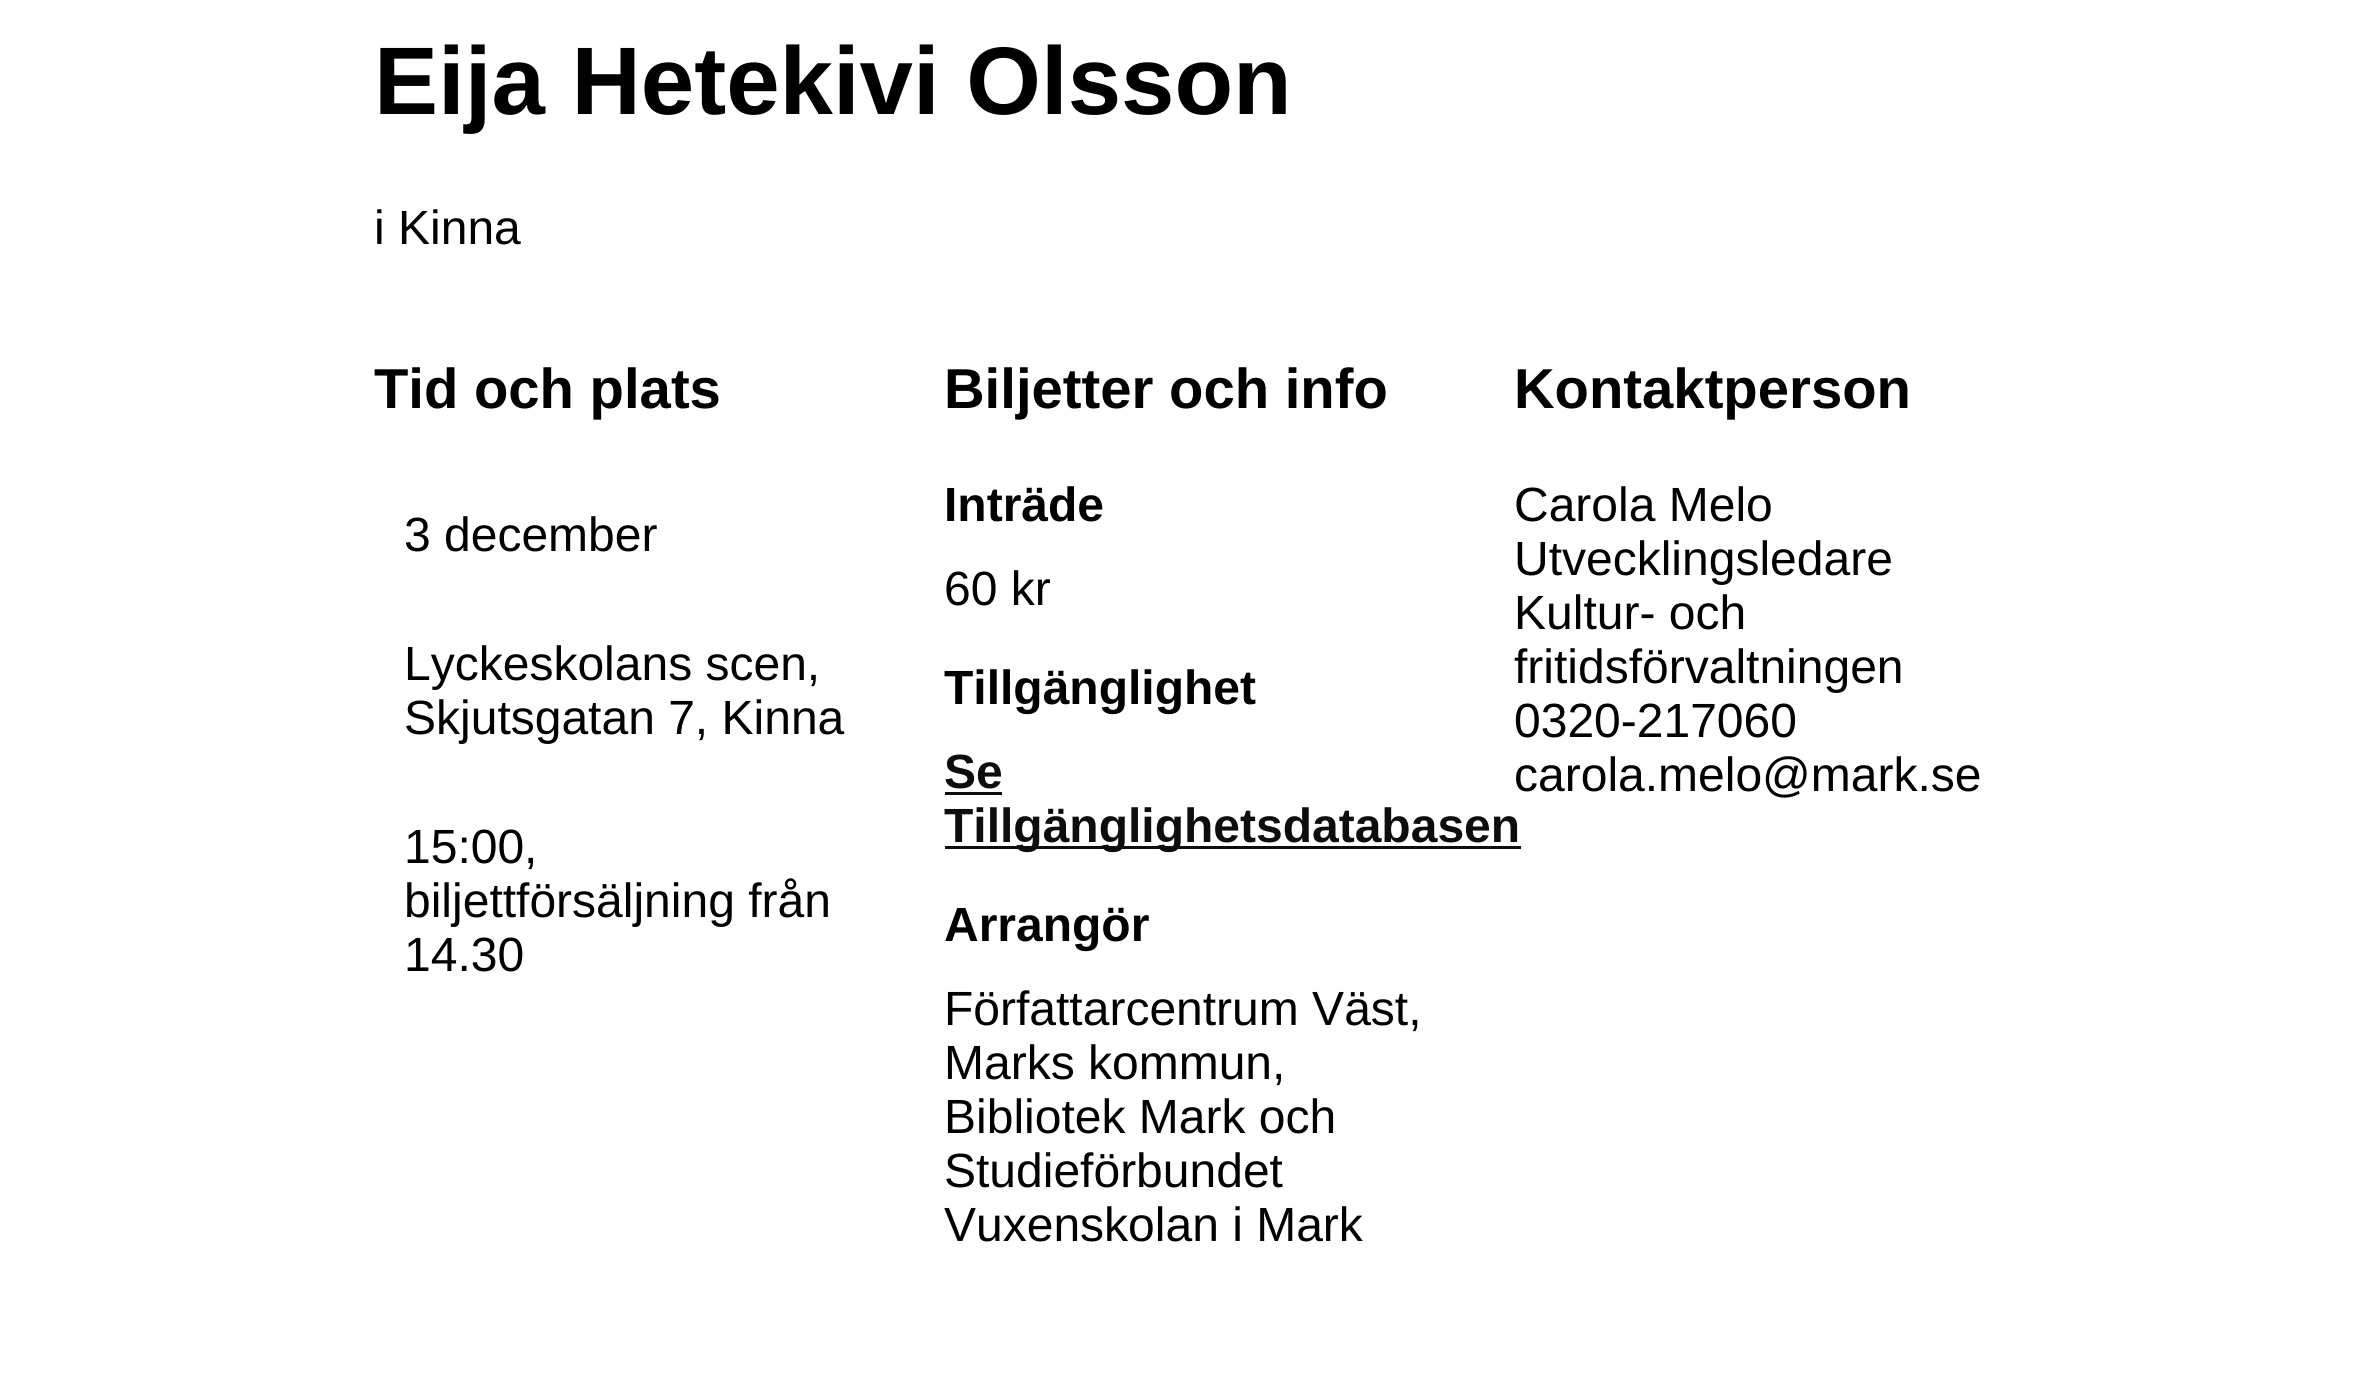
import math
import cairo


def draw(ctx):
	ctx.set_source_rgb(1, 1, 1)
	ctx.paint()
	ctx.select_font_face('Liberation Sans', cairo.FONT_SLANT_NORMAL, cairo.FONT_WEIGHT_BOLD)
	ctx.set_font_size(96)
	ctx.set_source_rgb(0, 0, 0)
	ctx.move_to(374, 114)
	ctx.show_text('Eija Hetekivi Olsson')
	ctx.select_font_face('Liberation Sans')
	ctx.set_font_size(48)
	ctx.move_to(374, 244)
	ctx.show_text('i Kinna')
	ctx.select_font_face('Liberation Sans', cairo.FONT_SLANT_NORMAL, cairo.FONT_WEIGHT_BOLD)
	ctx.set_font_size(56.25)
	ctx.move_to(374, 408)
	ctx.show_text('Tid och plats')
	ctx.select_font_face('Liberation Sans')
	ctx.set_font_size(48)
	for x, y, s in [
		(404, 551, '3 december'),
		(404, 680, 'Lyckeskolans scen,'),
		(404, 734, 'Skjutsgatan 7, Kinna'),
		(404, 863, '15:00,'),
		(404, 917, 'biljettförsäljning från'),
		(404, 971, '14.30'),
	]:
		ctx.move_to(x, y)
		ctx.show_text(s)
	ctx.select_font_face('Liberation Sans', cairo.FONT_SLANT_NORMAL, cairo.FONT_WEIGHT_BOLD)
	ctx.set_font_size(56.25)
	ctx.move_to(944, 408)
	ctx.show_text('Biljetter och info')
	ctx.set_font_size(48)
	ctx.move_to(944, 521)
	ctx.show_text('Inträde')
	ctx.select_font_face('Liberation Sans')
	ctx.move_to(944, 605)
	ctx.show_text('60 kr')
	ctx.select_font_face('Liberation Sans', cairo.FONT_SLANT_NORMAL, cairo.FONT_WEIGHT_BOLD)
	ctx.move_to(944, 704)
	ctx.show_text('Tillgänglighet')
	ctx.set_source_rgb(0.051, 0.051, 0.059)
	ctx.move_to(944, 788)
	ctx.show_text('Se')
	ctx.rectangle(945, 792, 57, 3)
	ctx.fill()
	ctx.rectangle(945, 846, 576, 3)
	ctx.fill()
	ctx.move_to(944, 842)
	ctx.show_text('Tillgänglighetsdatabasen')
	ctx.set_source_rgb(0, 0, 0)
	ctx.move_to(944, 941)
	ctx.show_text('Arrangör')
	ctx.select_font_face('Liberation Sans')
	for x, y, s in [
		(944, 1025, 'Författarcentrum Väst,'),
		(944, 1079, 'Marks kommun,'),
		(944, 1133, 'Bibliotek Mark och'),
		(944, 1187, 'Studieförbundet'),
		(944, 1241, 'Vuxenskolan i Mark'),
	]:
		ctx.move_to(x, y)
		ctx.show_text(s)
	ctx.select_font_face('Liberation Sans', cairo.FONT_SLANT_NORMAL, cairo.FONT_WEIGHT_BOLD)
	ctx.set_font_size(56.25)
	ctx.move_to(1514, 408)
	ctx.show_text('Kontaktperson')
	ctx.select_font_face('Liberation Sans')
	ctx.set_font_size(48)
	for x, y, s in [
		(1514, 521, 'Carola Melo'),
		(1514, 575, 'Utvecklingsledare'),
		(1514, 629, 'Kultur- och'),
		(1514, 683, 'fritidsförvaltningen'),
		(1514, 737, '0320-217060'),
		(1514, 791, 'carola.melo@mark.se'),
	]:
		ctx.move_to(x, y)
		ctx.show_text(s)


surface = cairo.ImageSurface(cairo.FORMAT_RGB24, 2366, 1379)
ctx = cairo.Context(surface)
options = cairo.FontOptions()
options.set_hint_metrics(cairo.HINT_METRICS_OFF)
options.set_hint_style(cairo.HINT_STYLE_NONE)
ctx.set_font_options(options)
ctx.set_miter_limit(4)
draw(ctx)
surface.write_to_png('image.png')
